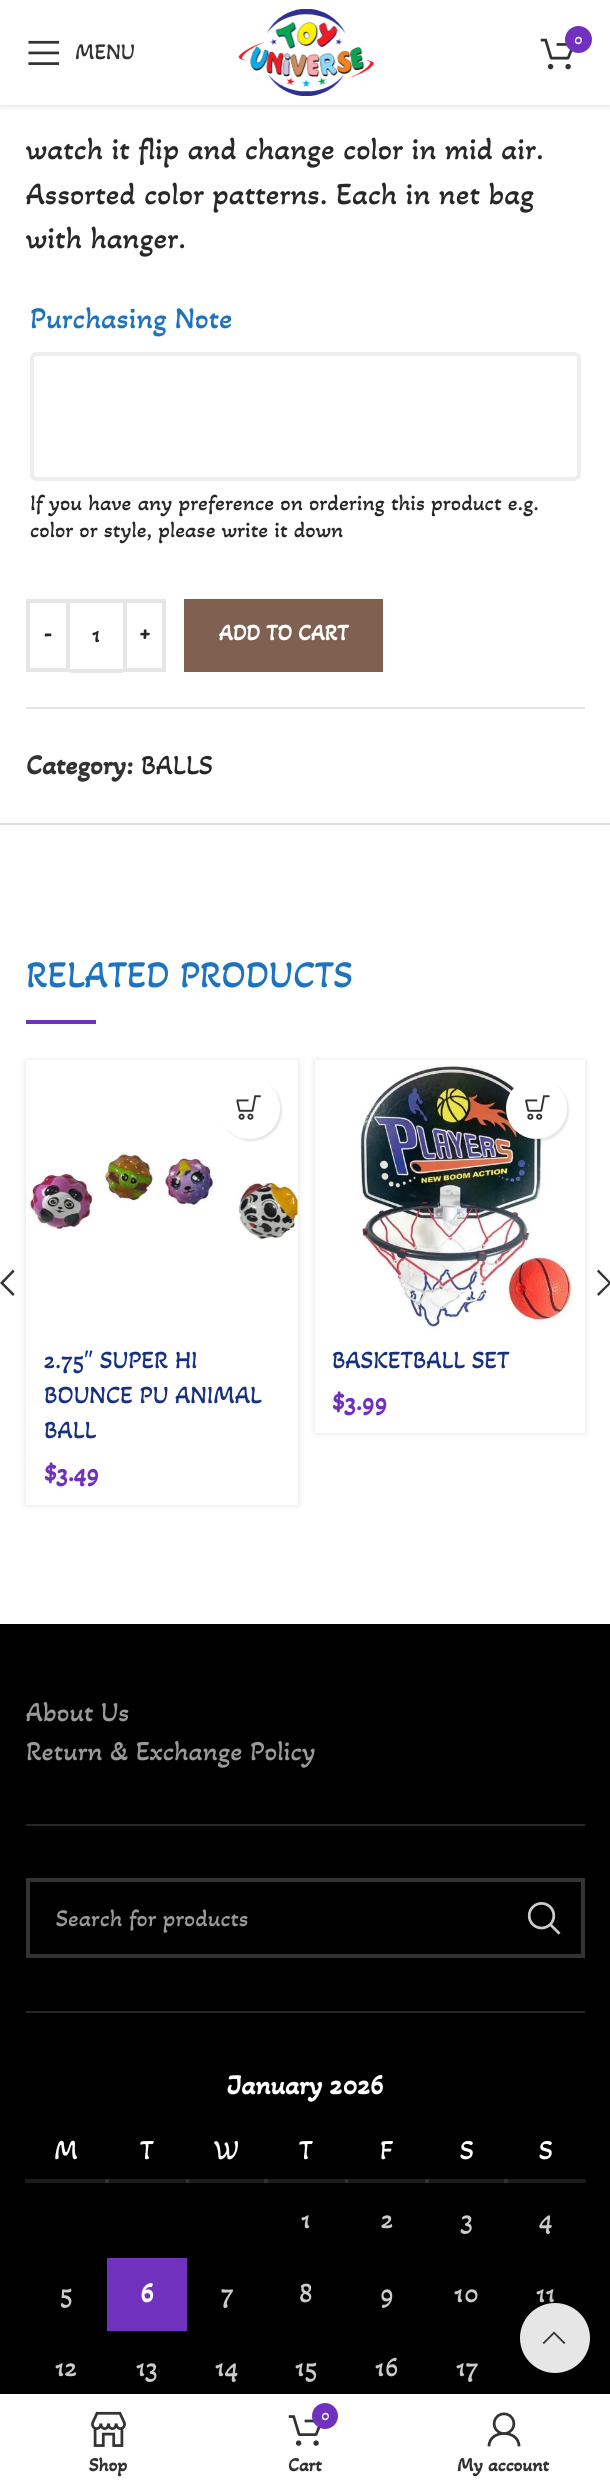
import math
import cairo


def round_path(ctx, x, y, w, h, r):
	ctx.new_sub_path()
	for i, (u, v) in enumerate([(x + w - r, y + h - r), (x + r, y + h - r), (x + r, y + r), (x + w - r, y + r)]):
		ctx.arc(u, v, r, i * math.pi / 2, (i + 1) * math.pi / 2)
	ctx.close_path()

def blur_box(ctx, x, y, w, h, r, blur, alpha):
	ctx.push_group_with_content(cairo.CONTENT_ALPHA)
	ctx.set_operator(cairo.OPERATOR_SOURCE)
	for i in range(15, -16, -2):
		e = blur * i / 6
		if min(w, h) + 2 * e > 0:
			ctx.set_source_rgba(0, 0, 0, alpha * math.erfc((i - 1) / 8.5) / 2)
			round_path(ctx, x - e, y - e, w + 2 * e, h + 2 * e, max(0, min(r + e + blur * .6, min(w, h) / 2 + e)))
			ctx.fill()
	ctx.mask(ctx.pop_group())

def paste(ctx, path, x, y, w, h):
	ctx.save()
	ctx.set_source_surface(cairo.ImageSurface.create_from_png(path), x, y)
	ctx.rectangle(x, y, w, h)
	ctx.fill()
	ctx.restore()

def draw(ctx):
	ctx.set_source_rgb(1, 1, 1)
	ctx.paint()
	ctx.set_source_rgb(0, 0, 0)
	blur_box(ctx, 0, 2, 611, 105, 0, 2.5, 0.1)
	ctx.set_source_rgb(1, 1, 1)
	ctx.rectangle(0, 0, 610, 105)
	ctx.fill()
	paste(ctx, 'media/1.png', 238, 9, 137, 87)
	paste(ctx, 'media/2.png', 540, 38, 33, 32)
	ctx.set_source_rgb(0.443, 0.192, 0.749)
	ctx.arc(578.5, 39.5, 13.5, 0, 2 * math.pi)
	ctx.fill()
	ctx.select_font_face('Akaya Kanadaka')
	ctx.set_font_size(16)
	ctx.set_source_rgb(1, 1, 1)
	ctx.move_to(574, 44)
	ctx.show_text('0')
	paste(ctx, 'media/3.png', 28, 40, 32, 25)
	ctx.set_font_size(22.75)
	ctx.set_source_rgb(0.2, 0.2, 0.2)
	ctx.move_to(75, 59)
	ctx.show_text('MENU')
	ctx.set_font_size(31.5)
	ctx.set_source_rgb(0.157, 0.157, 0.157)
	for x, y, s in [
		(26, 159, 'watch it flip and change color in mid air.'),
		(26, 204, 'Assorted color patterns. Each in net bag'),
		(26, 248, 'with hanger.'),
	]:
		ctx.move_to(x, y)
		ctx.show_text(s)
	ctx.set_font_size(30.75)
	ctx.set_source_rgb(0.118, 0.451, 0.745)
	ctx.move_to(30, 328)
	ctx.show_text('Purchasing Note')
	round_path(ctx, 32, 354, 547, 125, 5)
	ctx.set_source_rgb(0.933, 0.933, 0.933)
	ctx.set_line_width(4)
	ctx.stroke()
	ctx.set_font_size(22.75)
	ctx.set_source_rgb(0.157, 0.157, 0.157)
	ctx.move_to(30, 510)
	ctx.show_text('If you have any preference on ordering this product e.g.')
	ctx.move_to(30, 537)
	ctx.show_text('color or style, please write it down')
	ctx.rectangle(28, 601, 40, 69)
	ctx.set_source_rgb(0.902, 0.902, 0.902)
	ctx.stroke()
	ctx.select_font_face('Akaya Kanadaka', cairo.FONT_SLANT_NORMAL, cairo.FONT_WEIGHT_BOLD)
	ctx.set_source_rgb(0.157, 0.157, 0.157)
	ctx.move_to(44, 640)
	ctx.show_text('-')
	ctx.set_source_rgb(0.902, 0.902, 0.902)
	ctx.rectangle(70, 599, 53, 4)
	ctx.fill()
	ctx.rectangle(70, 669, 53, 4)
	ctx.fill()
	ctx.select_font_face('Akaya Kanadaka')
	ctx.set_font_size(24.5)
	ctx.set_source_rgb(0.157, 0.157, 0.157)
	ctx.move_to(92, 642)
	ctx.show_text('1')
	ctx.rectangle(125, 601, 39, 69)
	ctx.set_source_rgb(0.902, 0.902, 0.902)
	ctx.stroke()
	ctx.select_font_face('Akaya Kanadaka', cairo.FONT_SLANT_NORMAL, cairo.FONT_WEIGHT_BOLD)
	ctx.set_font_size(22.75)
	ctx.set_source_rgb(0.157, 0.157, 0.157)
	ctx.move_to(139, 640)
	ctx.show_text('+')
	ctx.set_source_rgb(0.498, 0.376, 0.318)
	ctx.rectangle(184, 599, 199, 73)
	ctx.fill()
	ctx.set_source_rgb(1, 1, 1)
	ctx.move_to(219, 640)
	ctx.show_text('ADD TO CART')
	ctx.set_source_rgb(0.894, 0.894, 0.894)
	ctx.rectangle(26, 707, 559, 2)
	ctx.fill()
	ctx.set_font_size(28)
	ctx.set_source_rgb(0.2, 0.2, 0.2)
	ctx.move_to(26, 774)
	ctx.show_text('Category:')
	ctx.select_font_face('Akaya Kanadaka')
	ctx.set_source_rgb(0.157, 0.157, 0.157)
	ctx.move_to(141, 774)
	ctx.show_text('BALLS')
	ctx.set_source_rgb(0.867, 0.867, 0.867)
	ctx.rectangle(0, 823, 610, 2)
	ctx.fill()
	ctx.set_font_size(38.5)
	ctx.set_source_rgb(0.118, 0.451, 0.745)
	ctx.move_to(26, 987)
	ctx.show_text('RELATED PRODUCTS')
	ctx.set_source_rgb(0.443, 0.192, 0.749)
	ctx.rectangle(26, 1020, 70, 4)
	ctx.fill()
	ctx.set_source_rgb(0, 0, 0)
	blur_box(ctx, 26, 1061, 272, 444, 0, 3.5, 0.12)
	ctx.set_source_rgb(0.2, 0.2, 0.2)
	ctx.new_path()
	ctx.move_to(14.5, 1271.5)
	ctx.line_to(13, 1269.5)
	ctx.line_to(0, 1283)
	ctx.line_to(13, 1296)
	ctx.line_to(14.5, 1294)
	ctx.line_to(3.5, 1283)
	ctx.close_path()
	ctx.fill()
	ctx.new_path()
	ctx.move_to(597, 1271.5)
	ctx.line_to(608.5, 1283)
	ctx.line_to(597, 1294)
	ctx.line_to(598.5, 1296)
	ctx.line_to(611.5, 1283)
	ctx.line_to(598.5, 1269.5)
	ctx.close_path()
	ctx.fill()
	ctx.set_source_rgb(1, 1, 1)
	ctx.rectangle(26, 1061, 272, 444)
	ctx.fill()
	paste(ctx, 'media/4.png', 26, 1060, 272, 180)
	ctx.set_source_rgb(0, 0, 0)
	blur_box(ctx, 221, 1080, 61, 61, 30.5, 1, 0.1)
	ctx.set_source_rgb(1, 1, 1)
	ctx.arc(249.5, 1108.5, 30.5, 0, 2 * math.pi)
	ctx.fill()
	paste(ctx, 'media/5.png', 236, 1095, 25, 25)
	ctx.set_font_size(25.25)
	ctx.set_source_rgb(0.086, 0.192, 0.498)
	ctx.move_to(44, 1368)
	ctx.show_text('2.75')
	ctx.select_font_face('Liberation Sans')
	ctx.move_to(84, 1368)
	ctx.show_text('″')
	ctx.select_font_face('Akaya Kanadaka')
	for x, y, s in [
		(100, 1368, 'SUPER HI'),
		(44, 1403, 'BOUNCE PU ANIMAL'),
		(44, 1438, 'BALL'),
	]:
		ctx.move_to(x, y)
		ctx.show_text(s)
	ctx.select_font_face('Akaya Kanadaka', cairo.FONT_SLANT_NORMAL, cairo.FONT_WEIGHT_BOLD)
	ctx.set_source_rgb(0.443, 0.192, 0.749)
	ctx.move_to(44, 1481)
	ctx.show_text('$3.49')
	ctx.set_source_rgb(0, 0, 0)
	blur_box(ctx, 315, 1061, 270, 372, 0, 3.5, 0.12)
	ctx.set_source_rgb(1, 1, 1)
	ctx.rectangle(315, 1061, 270, 372)
	ctx.fill()
	paste(ctx, 'media/6.png', 316, 1060, 269, 270)
	ctx.set_source_rgb(0, 0, 0)
	blur_box(ctx, 508, 1080, 61, 61, 30.5, 1, 0.1)
	ctx.set_source_rgb(1, 1, 1)
	ctx.arc(536.5, 1108.5, 30.5, 0, 2 * math.pi)
	ctx.fill()
	paste(ctx, 'media/7.png', 525, 1095, 25, 25)
	ctx.select_font_face('Akaya Kanadaka')
	ctx.set_source_rgb(0.086, 0.192, 0.498)
	ctx.move_to(332, 1368)
	ctx.show_text('BASKETBALL SET')
	ctx.select_font_face('Akaya Kanadaka', cairo.FONT_SLANT_NORMAL, cairo.FONT_WEIGHT_BOLD)
	ctx.set_source_rgb(0.443, 0.192, 0.749)
	ctx.move_to(332, 1410)
	ctx.show_text('$3.99')
	ctx.set_source_rgb(0, 0, 0)
	ctx.rectangle(0, 1624, 610, 770)
	ctx.fill()
	ctx.set_source_rgb(0.102, 0.102, 0.102)
	ctx.rectangle(25, 2179, 561, 4)
	ctx.fill()
	ctx.set_source_rgb(0.192, 0.192, 0.192)
	ctx.rectangle(105, 2179, 4, 4)
	ctx.rectangle(186, 2179, 3, 4)
	ctx.rectangle(264, 2179, 4, 4)
	ctx.rectangle(345, 2179, 3, 4)
	ctx.rectangle(425, 2179, 4, 4)
	ctx.fill()
	ctx.set_source_rgb(0.149, 0.149, 0.149)
	ctx.rectangle(26, 1824, 559, 2)
	ctx.fill()
	ctx.select_font_face('Akaya Kanadaka')
	ctx.set_font_size(28)
	ctx.set_source_rgb(0.6, 0.6, 0.6)
	ctx.move_to(26, 1721)
	ctx.show_text('About Us')
	ctx.move_to(26, 1760)
	ctx.show_text('Return & Exchange Policy')
	ctx.set_source_rgb(0.149, 0.149, 0.149)
	ctx.rectangle(26, 2011, 559, 2)
	ctx.fill()
	ctx.rectangle(28, 1880, 555, 76)
	ctx.set_source_rgb(0.2, 0.2, 0.2)
	ctx.stroke()
	ctx.set_font_size(24.5)
	ctx.set_source_rgb(0.6, 0.6, 0.6)
	ctx.move_to(56, 1926)
	ctx.show_text('Search for products')
	paste(ctx, 'media/8.png', 527, 1902, 34, 33)
	ctx.select_font_face('Akaya Kanadaka', cairo.FONT_SLANT_NORMAL, cairo.FONT_WEIGHT_BOLD)
	ctx.set_font_size(28)
	ctx.set_source_rgb(1, 1, 1)
	ctx.move_to(227, 2094)
	ctx.show_text('January 2026')
	ctx.select_font_face('Akaya Kanadaka')
	for x, y, s in [
		(54, 2159, 'M'),
		(140, 2159, 'T'),
		(214, 2159, 'W'),
		(299, 2159, 'T'),
		(380, 2159, 'F'),
		(460, 2159, 'S'),
	]:
		ctx.move_to(x, y)
		ctx.show_text(s)
	ctx.set_source_rgb(0.192, 0.192, 0.192)
	ctx.rectangle(504, 2179, 4, 4)
	ctx.fill()
	ctx.set_source_rgb(1, 1, 1)
	ctx.move_to(539, 2159)
	ctx.show_text('S')
	ctx.set_source_rgb(0.8, 0.8, 0.8)
	for x, y, s in [
		(301, 2228, '1'),
		(381, 2228, '2'),
		(461, 2228, '3'),
		(539, 2228, '4'),
		(60, 2302, '5'),
	]:
		ctx.move_to(x, y)
		ctx.show_text(s)
	ctx.set_source_rgb(0.443, 0.192, 0.749)
	ctx.rectangle(107, 2258, 80, 73)
	ctx.fill()
	ctx.select_font_face('Akaya Kanadaka', cairo.FONT_SLANT_NORMAL, cairo.FONT_WEIGHT_BOLD)
	ctx.set_source_rgb(1, 1, 1)
	ctx.move_to(140, 2302)
	ctx.show_text('6')
	ctx.select_font_face('Akaya Kanadaka')
	ctx.set_source_rgb(0.8, 0.8, 0.8)
	for x, y, s in [
		(221, 2302, '7'),
		(299, 2302, '8'),
		(380, 2302, '9'),
		(454, 2302, '10'),
		(536, 2302, '11'),
		(55, 2376, '12'),
		(136, 2376, '13'),
		(215, 2376, '14'),
		(295, 2376, '15'),
		(375, 2376, '16'),
		(456, 2376, '17'),
	]:
		ctx.move_to(x, y)
		ctx.show_text(s)
	ctx.save()
	ctx.set_fill_rule(cairo.FILL_RULE_EVEN_ODD)
	ctx.new_path()
	ctx.move_to(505, 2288)
	ctx.line_to(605, 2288)
	ctx.line_to(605, 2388)
	ctx.line_to(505, 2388)
	ctx.close_path()
	ctx.move_to(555, 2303)
	ctx.curve_to(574.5, 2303, 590, 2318.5, 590, 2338)
	ctx.curve_to(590, 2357.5, 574.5, 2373, 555, 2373)
	ctx.curve_to(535.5, 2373, 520, 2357.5, 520, 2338)
	ctx.curve_to(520, 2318.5, 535.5, 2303, 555, 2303)
	ctx.close_path()
	ctx.clip()
	ctx.set_source_rgb(0, 0, 0)
	blur_box(ctx, 520, 2303, 70, 70, 35, 4.5, 0.17)
	ctx.restore()
	ctx.set_source_rgba(1, 1, 1, 0.9)
	ctx.arc(555, 2338, 35, 0, 2 * math.pi)
	ctx.fill()
	ctx.set_source_rgb(0.2, 0.2, 0.2)
	ctx.new_path()
	ctx.move_to(564, 2344)
	ctx.line_to(565.5, 2343)
	ctx.line_to(554, 2331.5)
	ctx.line_to(542.5, 2343)
	ctx.line_to(544, 2344)
	ctx.line_to(554, 2334)
	ctx.close_path()
	ctx.fill()
	paste(ctx, 'media/9.png', 91, 2411, 35, 36)
	ctx.select_font_face('Akaya Kanadaka', cairo.FONT_SLANT_NORMAL, cairo.FONT_WEIGHT_BOLD)
	ctx.set_font_size(19.25)
	ctx.move_to(89, 2471)
	ctx.show_text('Shop')
	paste(ctx, 'media/10.png', 288, 2415, 33, 31)
	ctx.set_source_rgb(0.443, 0.192, 0.749)
	ctx.arc(325, 2416, 13, 0, 2 * math.pi)
	ctx.fill()
	ctx.select_font_face('Akaya Kanadaka')
	ctx.set_font_size(16)
	ctx.set_source_rgb(1, 1, 1)
	ctx.move_to(321, 2420)
	ctx.show_text('0')
	ctx.select_font_face('Akaya Kanadaka', cairo.FONT_SLANT_NORMAL, cairo.FONT_WEIGHT_BOLD)
	ctx.set_font_size(19.25)
	ctx.set_source_rgb(0.2, 0.2, 0.2)
	ctx.move_to(288, 2471)
	ctx.show_text('Cart')
	paste(ctx, 'media/11.png', 487, 2412, 34, 35)
	ctx.move_to(457, 2471)
	ctx.show_text('My account')


surface = cairo.ImageSurface(cairo.FORMAT_RGB24, 610, 2490)
ctx = cairo.Context(surface)
options = cairo.FontOptions()
options.set_hint_metrics(cairo.HINT_METRICS_OFF)
options.set_hint_style(cairo.HINT_STYLE_NONE)
ctx.set_font_options(options)
ctx.set_miter_limit(4)
draw(ctx)
surface.write_to_png('image.png')
